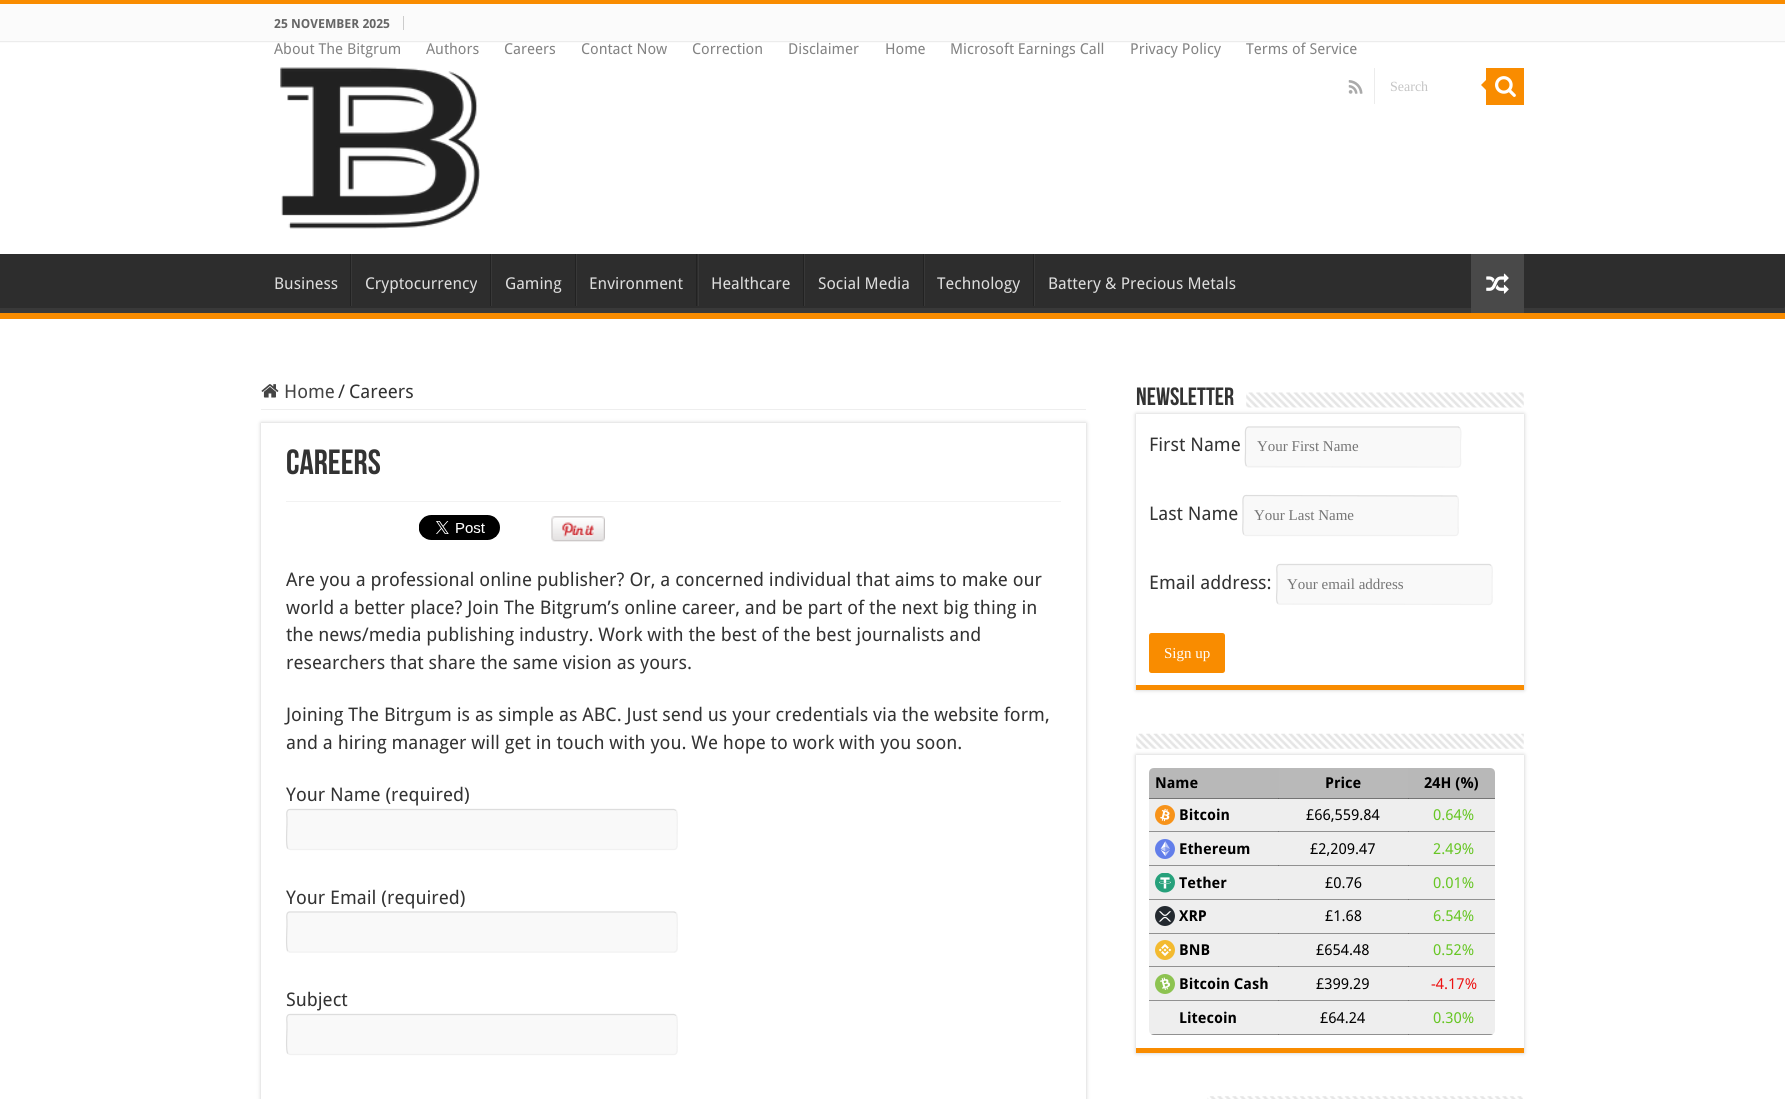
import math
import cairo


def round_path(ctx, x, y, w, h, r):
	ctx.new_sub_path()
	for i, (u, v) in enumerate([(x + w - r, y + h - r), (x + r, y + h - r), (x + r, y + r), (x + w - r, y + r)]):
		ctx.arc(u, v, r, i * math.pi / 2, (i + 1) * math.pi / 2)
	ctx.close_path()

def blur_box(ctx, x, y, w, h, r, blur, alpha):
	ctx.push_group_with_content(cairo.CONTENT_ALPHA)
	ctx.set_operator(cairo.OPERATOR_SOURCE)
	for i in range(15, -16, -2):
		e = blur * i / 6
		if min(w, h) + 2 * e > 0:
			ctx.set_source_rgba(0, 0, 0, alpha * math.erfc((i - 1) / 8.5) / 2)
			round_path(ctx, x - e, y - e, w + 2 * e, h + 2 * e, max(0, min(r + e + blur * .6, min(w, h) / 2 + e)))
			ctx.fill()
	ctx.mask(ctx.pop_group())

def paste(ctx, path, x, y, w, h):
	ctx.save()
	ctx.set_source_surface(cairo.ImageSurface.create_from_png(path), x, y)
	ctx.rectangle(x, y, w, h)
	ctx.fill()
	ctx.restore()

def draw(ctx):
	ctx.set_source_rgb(1, 1, 1)
	ctx.paint()
	ctx.set_source_rgb(0.973, 0.549, 0)
	ctx.rectangle(0, 0, 1785, 4)
	ctx.fill()
	ctx.set_source_rgb(0.984, 0.984, 0.984)
	ctx.rectangle(0, 4, 1785, 39)
	ctx.fill()
	ctx.set_source_rgb(0.925, 0.925, 0.925)
	ctx.rectangle(0, 41, 1785, 1)
	ctx.fill()
	ctx.set_source_rgb(0.8, 0.8, 0.8)
	ctx.rectangle(403, 16, 1, 14)
	ctx.fill()
	ctx.select_font_face('Droid Sans', cairo.FONT_SLANT_NORMAL, cairo.FONT_WEIGHT_BOLD)
	ctx.set_font_size(12.5)
	ctx.set_source_rgb(0.4, 0.4, 0.4)
	ctx.move_to(274, 28)
	ctx.show_text('25 NOVEMBER 2025')
	ctx.select_font_face('Droid Sans')
	ctx.set_font_size(15)
	ctx.set_source_rgb(0.514, 0.514, 0.514)
	for x, y, s in [
		(274, 54, 'About The Bitgrum'),
		(426, 54, 'Authors'),
		(504, 54, 'Careers'),
		(581, 54, 'Contact Now'),
		(692, 54, 'Correction'),
		(788, 54, 'Disclaimer'),
		(885, 54, 'Home'),
		(950, 54, 'Microsoft Earnings Call'),
		(1130, 54, 'Privacy Policy'),
		(1246, 54, 'Terms of Service'),
	]:
		ctx.move_to(x, y)
		ctx.show_text(s)
	paste(ctx, 'media/1.png', 1348, 80, 15, 14)
	ctx.set_source_rgb(0.925, 0.925, 0.925)
	ctx.rectangle(1374, 68, 1, 36)
	ctx.fill()
	ctx.select_font_face('Liberation Serif')
	ctx.set_font_size(14)
	ctx.set_source_rgb(0.773, 0.773, 0.773)
	ctx.move_to(1390, 91)
	ctx.show_text('Search')
	ctx.set_source_rgb(0.973, 0.549, 0)
	ctx.rectangle(1486, 68, 38, 37)
	ctx.fill()
	paste(ctx, 'media/2.png', 1495, 76, 21, 21)
	ctx.new_path()
	ctx.move_to(1486, 80)
	ctx.line_to(1486, 90)
	ctx.line_to(1481, 85)
	ctx.close_path()
	ctx.fill()
	paste(ctx, 'media/3.png', 280, 67, 200, 162)
	ctx.set_source_rgb(0.176, 0.176, 0.176)
	ctx.rectangle(0, 254, 1785, 54)
	ctx.fill()
	ctx.save()
	ctx.rectangle(0, 254, 1785, 59)
	ctx.clip()
	ctx.set_source_rgb(0.224, 0.224, 0.224)
	ctx.set_fill_rule(cairo.FILL_RULE_EVEN_ODD)
	ctx.new_path()
	ctx.move_to(-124, 130)
	ctx.line_to(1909, 130)
	ctx.line_to(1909, 436)
	ctx.line_to(-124, 436)
	ctx.close_path()
	ctx.move_to(-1, 246)
	ctx.line_to(1784, 246)
	ctx.curve_to(1784, 246, 1785, 247, 1785, 248)
	ctx.line_to(1785, 306)
	ctx.curve_to(1785, 307, 1784, 308, 1784, 308)
	ctx.line_to(-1, 308)
	ctx.curve_to(-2, 308, -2, 307, -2, 306)
	ctx.line_to(-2, 248)
	ctx.curve_to(-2, 247, -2, 246, -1, 246)
	ctx.close_path()
	ctx.fill()
	ctx.restore()
	ctx.set_source_rgb(0.973, 0.549, 0)
	ctx.rectangle(0, 313, 1785, 6)
	ctx.fill()
	ctx.select_font_face('Droid Sans')
	ctx.set_font_size(16.25)
	ctx.set_source_rgb(0.867, 0.867, 0.867)
	ctx.move_to(274, 289)
	ctx.show_text('Business')
	ctx.set_source_rgb(0.133, 0.133, 0.133)
	ctx.rectangle(350, 254, 1, 52)
	ctx.fill()
	ctx.set_source_rgb(0.22, 0.22, 0.22)
	ctx.rectangle(351, 254, 1, 52)
	ctx.fill()
	ctx.set_source_rgb(0.867, 0.867, 0.867)
	ctx.move_to(365, 289)
	ctx.show_text('Cryptocurrency')
	ctx.set_source_rgb(0.133, 0.133, 0.133)
	ctx.rectangle(490, 254, 1, 52)
	ctx.fill()
	ctx.set_source_rgb(0.22, 0.22, 0.22)
	ctx.rectangle(491, 254, 1, 52)
	ctx.fill()
	ctx.set_source_rgb(0.867, 0.867, 0.867)
	ctx.move_to(505, 289)
	ctx.show_text('Gaming')
	ctx.set_source_rgb(0.133, 0.133, 0.133)
	ctx.rectangle(575, 254, 1, 52)
	ctx.fill()
	ctx.set_source_rgb(0.22, 0.22, 0.22)
	ctx.rectangle(576, 254, 1, 52)
	ctx.fill()
	ctx.set_source_rgb(0.867, 0.867, 0.867)
	ctx.move_to(589, 289)
	ctx.show_text('Environment')
	ctx.set_source_rgb(0.133, 0.133, 0.133)
	ctx.rectangle(696, 254, 1, 52)
	ctx.fill()
	ctx.set_source_rgb(0.22, 0.22, 0.22)
	ctx.rectangle(698, 254, 1, 52)
	ctx.fill()
	ctx.set_source_rgb(0.867, 0.867, 0.867)
	ctx.move_to(711, 289)
	ctx.show_text('Healthcare')
	ctx.set_source_rgb(0.133, 0.133, 0.133)
	ctx.rectangle(803, 254, 1, 52)
	ctx.fill()
	ctx.set_source_rgb(0.22, 0.22, 0.22)
	ctx.rectangle(804, 254, 1, 52)
	ctx.fill()
	ctx.set_source_rgb(0.867, 0.867, 0.867)
	ctx.move_to(818, 289)
	ctx.show_text('Social Media')
	ctx.set_source_rgb(0.133, 0.133, 0.133)
	ctx.rectangle(923, 254, 1, 52)
	ctx.fill()
	ctx.set_source_rgb(0.22, 0.22, 0.22)
	ctx.rectangle(924, 254, 1, 52)
	ctx.fill()
	ctx.set_source_rgb(0.867, 0.867, 0.867)
	ctx.move_to(937, 289)
	ctx.show_text('Technology')
	ctx.set_source_rgb(0.133, 0.133, 0.133)
	ctx.rectangle(1033, 254, 1, 52)
	ctx.fill()
	ctx.set_source_rgb(0.22, 0.22, 0.22)
	ctx.rectangle(1034, 254, 1, 52)
	ctx.fill()
	ctx.set_source_rgb(0.867, 0.867, 0.867)
	ctx.move_to(1048, 289)
	ctx.show_text('Battery & Precious Metals')
	ctx.set_source_rgb(0.286, 0.286, 0.286)
	ctx.rectangle(1471, 254, 53, 59)
	ctx.fill()
	paste(ctx, 'media/4.png', 1486, 273, 23, 21)
	ctx.set_source_rgb(0.933, 0.933, 0.933)
	ctx.rectangle(261, 409, 825, 1)
	ctx.fill()
	paste(ctx, 'media/5.png', 261, 384, 18, 14)
	ctx.set_font_size(18.75)
	ctx.set_source_rgb(0.267, 0.267, 0.267)
	ctx.move_to(284, 398)
	ctx.show_text('Home')
	ctx.set_source_rgb(0.2, 0.2, 0.2)
	ctx.move_to(338, 398)
	ctx.show_text('/')
	ctx.move_to(349, 398)
	ctx.show_text('Careers')
	ctx.set_source_rgb(0.792, 0.792, 0.792)
	blur_box(ctx, 261, 423, 825, 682, 0, 2, 1)
	ctx.set_source_rgb(1, 1, 1)
	ctx.rectangle(261, 423, 825, 676)
	ctx.fill()
	ctx.select_font_face('Bebas Neue', cairo.FONT_SLANT_NORMAL, cairo.FONT_WEIGHT_BOLD)
	ctx.set_font_size(35)
	ctx.set_source_rgb(0.2, 0.2, 0.2)
	ctx.move_to(286, 474)
	ctx.show_text('Careers')
	ctx.set_source_rgb(0.949, 0.949, 0.949)
	ctx.rectangle(286, 501, 775, 1)
	ctx.fill()
	paste(ctx, 'media/6.png', 419, 515, 81, 25)
	paste(ctx, 'media/7.png', 551, 516, 54, 26)
	ctx.select_font_face('Droid Sans')
	ctx.set_font_size(18.75)
	ctx.set_source_rgb(0.2, 0.2, 0.2)
	for x, y, s in [
		(286, 586, 'Are you a professional online publisher? Or, a concerned individual that aims to make our'),
		(286, 614, 'world a better place? Join The Bitgrum’s online career, and be part of the next big thing in'),
		(286, 641, 'the news/media publishing industry. Work with the best of the best journalists and'),
		(286, 669, 'researchers that share the same vision as yours.'),
		(286, 721, 'Joining The Bitrgum is as simple as ABC. Just send us your credentials via the website form,'),
		(286, 749, 'and a hiring manager will get in touch with you. We hope to work with you soon.'),
		(286, 801, 'Your Name (required)'),
	]:
		ctx.move_to(x, y)
		ctx.show_text(s)
	ctx.set_source_rgb(0.976, 0.976, 0.976)
	round_path(ctx, 286, 809, 392, 41, 4)
	ctx.fill()
	ctx.new_path()
	ctx.move_to(676, 810.5)
	ctx.curve_to(678, 812.5, 677, 831, 677, 835)
	ctx.line_to(677, 840.5)
	ctx.curve_to(677, 843, 678, 849.5, 674, 849.5)
	ctx.line_to(290, 849.5)
	ctx.line_to(288, 848.5)
	ctx.set_source_rgb(0.945, 0.945, 0.945)
	ctx.set_line_width(1.2)
	ctx.stroke()
	ctx.new_path()
	ctx.move_to(288, 848.5)
	ctx.curve_to(285.5, 846.5, 287, 827.5, 287, 824)
	ctx.line_to(287, 818)
	ctx.curve_to(287, 816, 285.5, 809.5, 290, 809.5)
	ctx.line_to(674, 809.5)
	ctx.line_to(676, 810.5)
	ctx.set_source_rgb(0.867, 0.867, 0.867)
	ctx.stroke()
	ctx.set_source_rgb(0.2, 0.2, 0.2)
	ctx.move_to(286, 904)
	ctx.show_text('Your Email (required)')
	ctx.set_source_rgb(0.976, 0.976, 0.976)
	round_path(ctx, 286, 911, 392, 42, 4)
	ctx.fill()
	ctx.new_path()
	ctx.move_to(676, 913)
	ctx.curve_to(678, 915, 677, 933.5, 677, 937.5)
	ctx.line_to(677, 943)
	ctx.curve_to(677, 945.5, 678, 952, 674, 952)
	ctx.line_to(290, 952)
	ctx.line_to(288, 951)
	ctx.set_source_rgb(0.945, 0.945, 0.945)
	ctx.stroke()
	ctx.new_path()
	ctx.move_to(288, 951)
	ctx.curve_to(285.5, 949, 287, 930, 287, 926)
	ctx.line_to(287, 920.5)
	ctx.curve_to(287, 918.5, 285.5, 912, 290, 912)
	ctx.line_to(674, 912)
	ctx.line_to(676, 913)
	ctx.set_source_rgb(0.867, 0.867, 0.867)
	ctx.stroke()
	ctx.set_source_rgb(0.2, 0.2, 0.2)
	ctx.move_to(286, 1006)
	ctx.show_text('Subject')
	ctx.set_source_rgb(0.976, 0.976, 0.976)
	round_path(ctx, 286, 1014, 392, 41, 4)
	ctx.fill()
	ctx.new_path()
	ctx.move_to(676, 1015.5)
	ctx.curve_to(678, 1017.5, 677, 1036, 677, 1040)
	ctx.line_to(677, 1045.5)
	ctx.curve_to(677, 1048, 678, 1054.5, 674, 1054.5)
	ctx.line_to(290, 1054.5)
	ctx.line_to(288, 1053.5)
	ctx.set_source_rgb(0.945, 0.945, 0.945)
	ctx.stroke()
	ctx.new_path()
	ctx.move_to(288, 1053.5)
	ctx.curve_to(285.5, 1051.5, 287, 1032.5, 287, 1029)
	ctx.line_to(287, 1023)
	ctx.curve_to(287, 1021, 285.5, 1014.5, 290, 1014.5)
	ctx.line_to(674, 1014.5)
	ctx.line_to(676, 1015.5)
	ctx.set_source_rgb(0.867, 0.867, 0.867)
	ctx.stroke()
	ctx.select_font_face('Bebas Neue', cairo.FONT_SLANT_NORMAL, cairo.FONT_WEIGHT_BOLD)
	ctx.set_font_size(25)
	ctx.set_source_rgb(0.2, 0.2, 0.2)
	ctx.move_to(1136, 405)
	ctx.show_text('Newsletter')
	ctx.set_source_rgb(0.792, 0.792, 0.792)
	blur_box(ctx, 1136, 414, 388, 276, 0, 2, 1)
	paste(ctx, 'media/8.png', 1246, 392, 278, 16)
	ctx.set_source_rgb(1, 1, 1)
	ctx.rectangle(1136, 414, 388, 271)
	ctx.fill()
	ctx.set_source_rgb(0.973, 0.549, 0)
	ctx.rectangle(1136, 685, 388, 5)
	ctx.fill()
	ctx.select_font_face('Droid Sans')
	ctx.set_font_size(18.75)
	ctx.set_source_rgb(0.2, 0.2, 0.2)
	ctx.move_to(1149, 451)
	ctx.show_text('First Name')
	ctx.set_source_rgb(0.976, 0.976, 0.976)
	round_path(ctx, 1245, 426, 216, 42, 4)
	ctx.fill()
	ctx.new_path()
	ctx.move_to(1459.5, 428)
	ctx.curve_to(1462, 430, 1460.5, 438.5, 1460.5, 441)
	ctx.line_to(1460.5, 458)
	ctx.curve_to(1460.5, 460.5, 1462, 467, 1457.5, 467)
	ctx.line_to(1248, 466.5)
	ctx.line_to(1246.5, 466)
	ctx.set_source_rgb(0.945, 0.945, 0.945)
	ctx.stroke()
	ctx.new_path()
	ctx.move_to(1246.5, 466)
	ctx.curve_to(1244.5, 463.5, 1245.5, 455, 1245.5, 452.5)
	ctx.line_to(1245.5, 435.5)
	ctx.curve_to(1245.5, 433.5, 1244.5, 427, 1249, 427)
	ctx.line_to(1458.5, 427)
	ctx.line_to(1459.5, 428)
	ctx.set_source_rgb(0.867, 0.867, 0.867)
	ctx.stroke()
	ctx.select_font_face('Liberation Serif')
	ctx.set_font_size(15)
	ctx.set_source_rgb(0.459, 0.459, 0.459)
	ctx.move_to(1257, 451)
	ctx.show_text('Your First Name')
	ctx.select_font_face('Droid Sans')
	ctx.set_font_size(18.75)
	ctx.set_source_rgb(0.2, 0.2, 0.2)
	ctx.move_to(1149, 520)
	ctx.show_text('Last Name')
	ctx.set_source_rgb(0.976, 0.976, 0.976)
	round_path(ctx, 1243, 495, 216, 41, 4)
	ctx.fill()
	ctx.new_path()
	ctx.move_to(1457, 496.5)
	ctx.curve_to(1459.5, 499, 1458, 507.5, 1458, 510)
	ctx.line_to(1458, 527)
	ctx.curve_to(1458, 529, 1459.5, 535.5, 1455, 535.5)
	ctx.line_to(1245.5, 535.5)
	ctx.line_to(1244, 534.5)
	ctx.set_source_rgb(0.945, 0.945, 0.945)
	ctx.stroke()
	ctx.new_path()
	ctx.move_to(1244, 534.5)
	ctx.curve_to(1242, 532.5, 1243, 524, 1243, 521)
	ctx.line_to(1243, 504.5)
	ctx.curve_to(1243, 502, 1242, 495.5, 1246, 495.5)
	ctx.line_to(1456, 496)
	ctx.line_to(1457, 496.5)
	ctx.set_source_rgb(0.867, 0.867, 0.867)
	ctx.stroke()
	ctx.select_font_face('Liberation Serif')
	ctx.set_font_size(15)
	ctx.set_source_rgb(0.459, 0.459, 0.459)
	ctx.move_to(1254, 520)
	ctx.show_text('Your Last Name')
	ctx.select_font_face('Droid Sans')
	ctx.set_font_size(18.75)
	ctx.set_source_rgb(0.2, 0.2, 0.2)
	ctx.move_to(1149, 589)
	ctx.show_text('Email address:')
	ctx.set_source_rgb(0.976, 0.976, 0.976)
	round_path(ctx, 1276, 564, 217, 41, 4)
	ctx.fill()
	ctx.new_path()
	ctx.move_to(1491, 565.5)
	ctx.curve_to(1493, 567.5, 1492, 576, 1492, 579)
	ctx.line_to(1492, 595.5)
	ctx.curve_to(1492, 598, 1493, 604.5, 1489, 604.5)
	ctx.line_to(1279, 604)
	ctx.line_to(1278, 603.5)
	ctx.set_source_rgb(0.945, 0.945, 0.945)
	ctx.stroke()
	ctx.new_path()
	ctx.move_to(1278, 603.5)
	ctx.curve_to(1275.5, 601, 1277, 592.5, 1277, 590)
	ctx.line_to(1277, 573)
	ctx.curve_to(1277, 571, 1275.5, 564.5, 1280, 564.5)
	ctx.line_to(1489.5, 564.5)
	ctx.line_to(1491, 565.5)
	ctx.set_source_rgb(0.867, 0.867, 0.867)
	ctx.stroke()
	ctx.select_font_face('Liberation Serif')
	ctx.set_font_size(15)
	ctx.set_source_rgb(0.459, 0.459, 0.459)
	ctx.move_to(1287, 589)
	ctx.show_text('Your email address')
	ctx.set_source_rgb(0.973, 0.549, 0)
	round_path(ctx, 1149, 633, 76, 40, 2.5)
	ctx.fill()
	ctx.set_source_rgb(1, 1, 1)
	ctx.move_to(1164, 658)
	ctx.show_text('Sign up')
	ctx.set_source_rgb(0.792, 0.792, 0.792)
	blur_box(ctx, 1136, 755, 388, 298, 0, 2, 1)
	paste(ctx, 'media/9.png', 1136, 733, 388, 16)
	ctx.set_source_rgb(1, 1, 1)
	ctx.rectangle(1136, 755, 388, 293)
	ctx.fill()
	ctx.set_source_rgb(0.973, 0.549, 0)
	ctx.rectangle(1136, 1048, 388, 5)
	ctx.fill()
	ctx.set_source_rgb(0.933, 0.933, 0.933)
	ctx.new_path()
	ctx.move_to(1154, 768)
	ctx.line_to(1490, 768)
	ctx.curve_to(1493, 768, 1495, 770, 1495, 773)
	ctx.line_to(1495, 799)
	ctx.line_to(1149, 799)
	ctx.line_to(1149, 773)
	ctx.curve_to(1149, 770, 1151, 768, 1154, 768)
	ctx.close_path()
	ctx.fill()
	ctx.set_source_rgba(0.133, 0.133, 0.133, 0.26)
	ctx.new_path()
	ctx.move_to(1154, 768)
	ctx.line_to(1279, 768)
	ctx.line_to(1279, 799)
	ctx.line_to(1149, 799)
	ctx.line_to(1149, 773)
	ctx.curve_to(1149, 770, 1151, 768, 1154, 768)
	ctx.close_path()
	ctx.fill()
	ctx.set_source_rgb(0.573, 0.573, 0.573)
	ctx.rectangle(1149, 798, 259, 1)
	ctx.fill()
	ctx.set_source_rgba(0.133, 0.133, 0.133, 0.26)
	ctx.new_path()
	ctx.move_to(1408, 768)
	ctx.line_to(1490, 768)
	ctx.curve_to(1493, 768, 1495, 770, 1495, 773)
	ctx.line_to(1495, 799)
	ctx.line_to(1408, 799)
	ctx.close_path()
	ctx.fill()
	ctx.set_source_rgb(0.459, 0.459, 0.459)
	ctx.rectangle(1408, 798, 87, 1)
	ctx.fill()
	ctx.set_source_rgba(0.133, 0.133, 0.133, 0.26)
	ctx.rectangle(1278, 798, 131, 1)
	ctx.fill()
	ctx.rectangle(1149, 798, 130, 1)
	ctx.fill()
	ctx.select_font_face('Droid Sans', cairo.FONT_SLANT_NORMAL, cairo.FONT_WEIGHT_BOLD)
	ctx.set_source_rgb(0, 0, 0)
	ctx.move_to(1155, 788)
	ctx.show_text('Name')
	ctx.set_source_rgb(0.725, 0.725, 0.725)
	ctx.rectangle(1279, 768, 129, 30)
	ctx.fill()
	ctx.set_source_rgb(0, 0, 0)
	ctx.move_to(1325, 788)
	ctx.show_text('Price')
	ctx.move_to(1424, 788)
	ctx.show_text('24H (%)')
	ctx.set_source_rgb(0.933, 0.933, 0.933)
	ctx.rectangle(1149, 799, 346, 66)
	ctx.fill()
	ctx.set_source_rgb(0.725, 0.725, 0.725)
	ctx.rectangle(1149, 831, 259, 1)
	ctx.fill()
	ctx.set_source_rgb(0.573, 0.573, 0.573)
	ctx.rectangle(1408, 831, 87, 1)
	ctx.fill()
	ctx.set_source_rgba(0.133, 0.133, 0.133, 0.26)
	ctx.rectangle(1278, 831, 131, 1)
	ctx.fill()
	ctx.rectangle(1149, 831, 130, 1)
	ctx.fill()
	paste(ctx, 'media/10.png', 1155, 805, 20, 20)
	ctx.set_source_rgb(0, 0, 0)
	ctx.move_to(1179, 820)
	ctx.show_text('Bitcoin')
	ctx.select_font_face('Droid Sans')
	ctx.move_to(1306, 820)
	ctx.show_text('£66,559.84')
	ctx.set_source_rgb(0.404, 0.776, 0.141)
	ctx.move_to(1433, 820)
	ctx.show_text('0.64%')
	ctx.set_source_rgb(0.725, 0.725, 0.725)
	ctx.rectangle(1149, 865, 259, 1)
	ctx.fill()
	ctx.set_source_rgb(0.573, 0.573, 0.573)
	ctx.rectangle(1408, 865, 87, 1)
	ctx.fill()
	ctx.set_source_rgba(0.133, 0.133, 0.133, 0.26)
	ctx.rectangle(1278, 865, 131, 1)
	ctx.fill()
	ctx.rectangle(1149, 865, 130, 1)
	ctx.fill()
	paste(ctx, 'media/11.png', 1155, 839, 20, 20)
	ctx.select_font_face('Droid Sans', cairo.FONT_SLANT_NORMAL, cairo.FONT_WEIGHT_BOLD)
	ctx.set_source_rgb(0, 0, 0)
	ctx.move_to(1179, 854)
	ctx.show_text('Ethereum')
	ctx.select_font_face('Droid Sans')
	ctx.move_to(1310, 854)
	ctx.show_text('£2,209.47')
	ctx.set_source_rgb(0.404, 0.776, 0.141)
	ctx.move_to(1433, 854)
	ctx.show_text('2.49%')
	ctx.set_source_rgb(0.933, 0.933, 0.933)
	ctx.rectangle(1149, 866, 346, 33)
	ctx.fill()
	ctx.set_source_rgb(0.725, 0.725, 0.725)
	ctx.rectangle(1149, 899, 259, 1)
	ctx.fill()
	ctx.set_source_rgb(0.573, 0.573, 0.573)
	ctx.rectangle(1408, 899, 87, 1)
	ctx.fill()
	ctx.set_source_rgba(0.133, 0.133, 0.133, 0.26)
	ctx.rectangle(1278, 899, 131, 1)
	ctx.fill()
	ctx.rectangle(1149, 899, 130, 1)
	ctx.fill()
	paste(ctx, 'media/12.png', 1155, 873, 20, 20)
	ctx.select_font_face('Droid Sans', cairo.FONT_SLANT_NORMAL, cairo.FONT_WEIGHT_BOLD)
	ctx.set_source_rgb(0, 0, 0)
	ctx.move_to(1179, 888)
	ctx.show_text('Tether')
	ctx.select_font_face('Droid Sans')
	ctx.move_to(1325, 888)
	ctx.show_text('£0.76')
	ctx.set_source_rgb(0.404, 0.776, 0.141)
	ctx.move_to(1433, 888)
	ctx.show_text('0.01%')
	ctx.set_source_rgb(0.933, 0.933, 0.933)
	ctx.rectangle(1149, 900, 346, 33)
	ctx.fill()
	ctx.set_source_rgb(0.725, 0.725, 0.725)
	ctx.rectangle(1149, 933, 259, 1)
	ctx.fill()
	ctx.set_source_rgb(0.573, 0.573, 0.573)
	ctx.rectangle(1408, 933, 87, 1)
	ctx.fill()
	ctx.set_source_rgba(0.133, 0.133, 0.133, 0.26)
	ctx.rectangle(1278, 933, 131, 1)
	ctx.fill()
	ctx.rectangle(1149, 933, 130, 1)
	ctx.fill()
	paste(ctx, 'media/13.png', 1155, 906, 20, 20)
	ctx.select_font_face('Droid Sans', cairo.FONT_SLANT_NORMAL, cairo.FONT_WEIGHT_BOLD)
	ctx.set_source_rgb(0, 0, 0)
	ctx.move_to(1179, 921)
	ctx.show_text('XRP')
	ctx.select_font_face('Droid Sans')
	ctx.move_to(1325, 921)
	ctx.show_text('£1.68')
	ctx.set_source_rgb(0.404, 0.776, 0.141)
	ctx.move_to(1433, 921)
	ctx.show_text('6.54%')
	ctx.set_source_rgb(0.933, 0.933, 0.933)
	ctx.rectangle(1149, 934, 346, 66)
	ctx.fill()
	ctx.set_source_rgb(0.725, 0.725, 0.725)
	ctx.rectangle(1149, 966, 259, 1)
	ctx.fill()
	ctx.set_source_rgb(0.573, 0.573, 0.573)
	ctx.rectangle(1408, 966, 87, 1)
	ctx.fill()
	ctx.set_source_rgba(0.133, 0.133, 0.133, 0.26)
	ctx.rectangle(1278, 966, 131, 1)
	ctx.fill()
	ctx.rectangle(1149, 966, 130, 1)
	ctx.fill()
	paste(ctx, 'media/14.png', 1155, 940, 20, 20)
	ctx.select_font_face('Droid Sans', cairo.FONT_SLANT_NORMAL, cairo.FONT_WEIGHT_BOLD)
	ctx.set_source_rgb(0, 0, 0)
	ctx.move_to(1179, 955)
	ctx.show_text('BNB')
	ctx.select_font_face('Droid Sans')
	ctx.move_to(1316, 955)
	ctx.show_text('£654.48')
	ctx.set_source_rgb(0.404, 0.776, 0.141)
	ctx.move_to(1433, 955)
	ctx.show_text('0.52%')
	ctx.set_source_rgb(0.725, 0.725, 0.725)
	ctx.rectangle(1149, 1000, 259, 1)
	ctx.fill()
	ctx.set_source_rgb(0.573, 0.573, 0.573)
	ctx.rectangle(1408, 1000, 87, 1)
	ctx.fill()
	ctx.set_source_rgba(0.133, 0.133, 0.133, 0.26)
	ctx.rectangle(1278, 1000, 131, 1)
	ctx.fill()
	ctx.rectangle(1149, 1000, 130, 1)
	ctx.fill()
	paste(ctx, 'media/15.png', 1155, 974, 20, 20)
	ctx.select_font_face('Droid Sans', cairo.FONT_SLANT_NORMAL, cairo.FONT_WEIGHT_BOLD)
	ctx.set_source_rgb(0, 0, 0)
	ctx.move_to(1179, 989)
	ctx.show_text('Bitcoin Cash')
	ctx.select_font_face('Droid Sans')
	ctx.move_to(1316, 989)
	ctx.show_text('£399.29')
	ctx.set_source_rgb(0.929, 0.078, 0.078)
	ctx.move_to(1431, 989)
	ctx.show_text('-4.17%')
	ctx.set_source_rgb(0.933, 0.933, 0.933)
	ctx.new_path()
	ctx.move_to(1149, 1001)
	ctx.line_to(1495, 1001)
	ctx.line_to(1495, 1030)
	ctx.curve_to(1495, 1033, 1493, 1035, 1490, 1035)
	ctx.line_to(1154, 1035)
	ctx.curve_to(1151, 1035, 1149, 1033, 1149, 1030)
	ctx.close_path()
	ctx.fill()
	ctx.save()
	round_path(ctx, 1149, 768, 346, 267, 5)
	ctx.clip()
	ctx.set_source_rgba(0.133, 0.133, 0.133, 0.26)
	ctx.rectangle(1149, 1034, 346, 1)
	ctx.fill()
	ctx.rectangle(1408, 1034, 87, 1)
	ctx.fill()
	ctx.restore()
	ctx.set_source_rgba(0.133, 0.133, 0.133, 0.26)
	ctx.rectangle(1278, 1034, 131, 1)
	ctx.fill()
	ctx.save()
	round_path(ctx, 1149, 768, 346, 267, 5)
	ctx.clip()
	ctx.rectangle(1149, 1034, 130, 1)
	ctx.fill()
	ctx.restore()
	ctx.select_font_face('Droid Sans', cairo.FONT_SLANT_NORMAL, cairo.FONT_WEIGHT_BOLD)
	ctx.set_source_rgb(0, 0, 0)
	ctx.move_to(1179, 1023)
	ctx.show_text('Litecoin')
	ctx.select_font_face('Droid Sans')
	ctx.move_to(1320, 1023)
	ctx.show_text('£64.24')
	ctx.set_source_rgb(0.404, 0.776, 0.141)
	ctx.move_to(1433, 1023)
	ctx.show_text('0.30%')
	paste(ctx, 'media/16.png', 1207, 1096, 316, 3)


surface = cairo.ImageSurface(cairo.FORMAT_RGB24, 1785, 1099)
ctx = cairo.Context(surface)
options = cairo.FontOptions()
options.set_hint_metrics(cairo.HINT_METRICS_OFF)
options.set_hint_style(cairo.HINT_STYLE_NONE)
ctx.set_font_options(options)
ctx.set_miter_limit(4)
draw(ctx)
surface.write_to_png('image.png')
